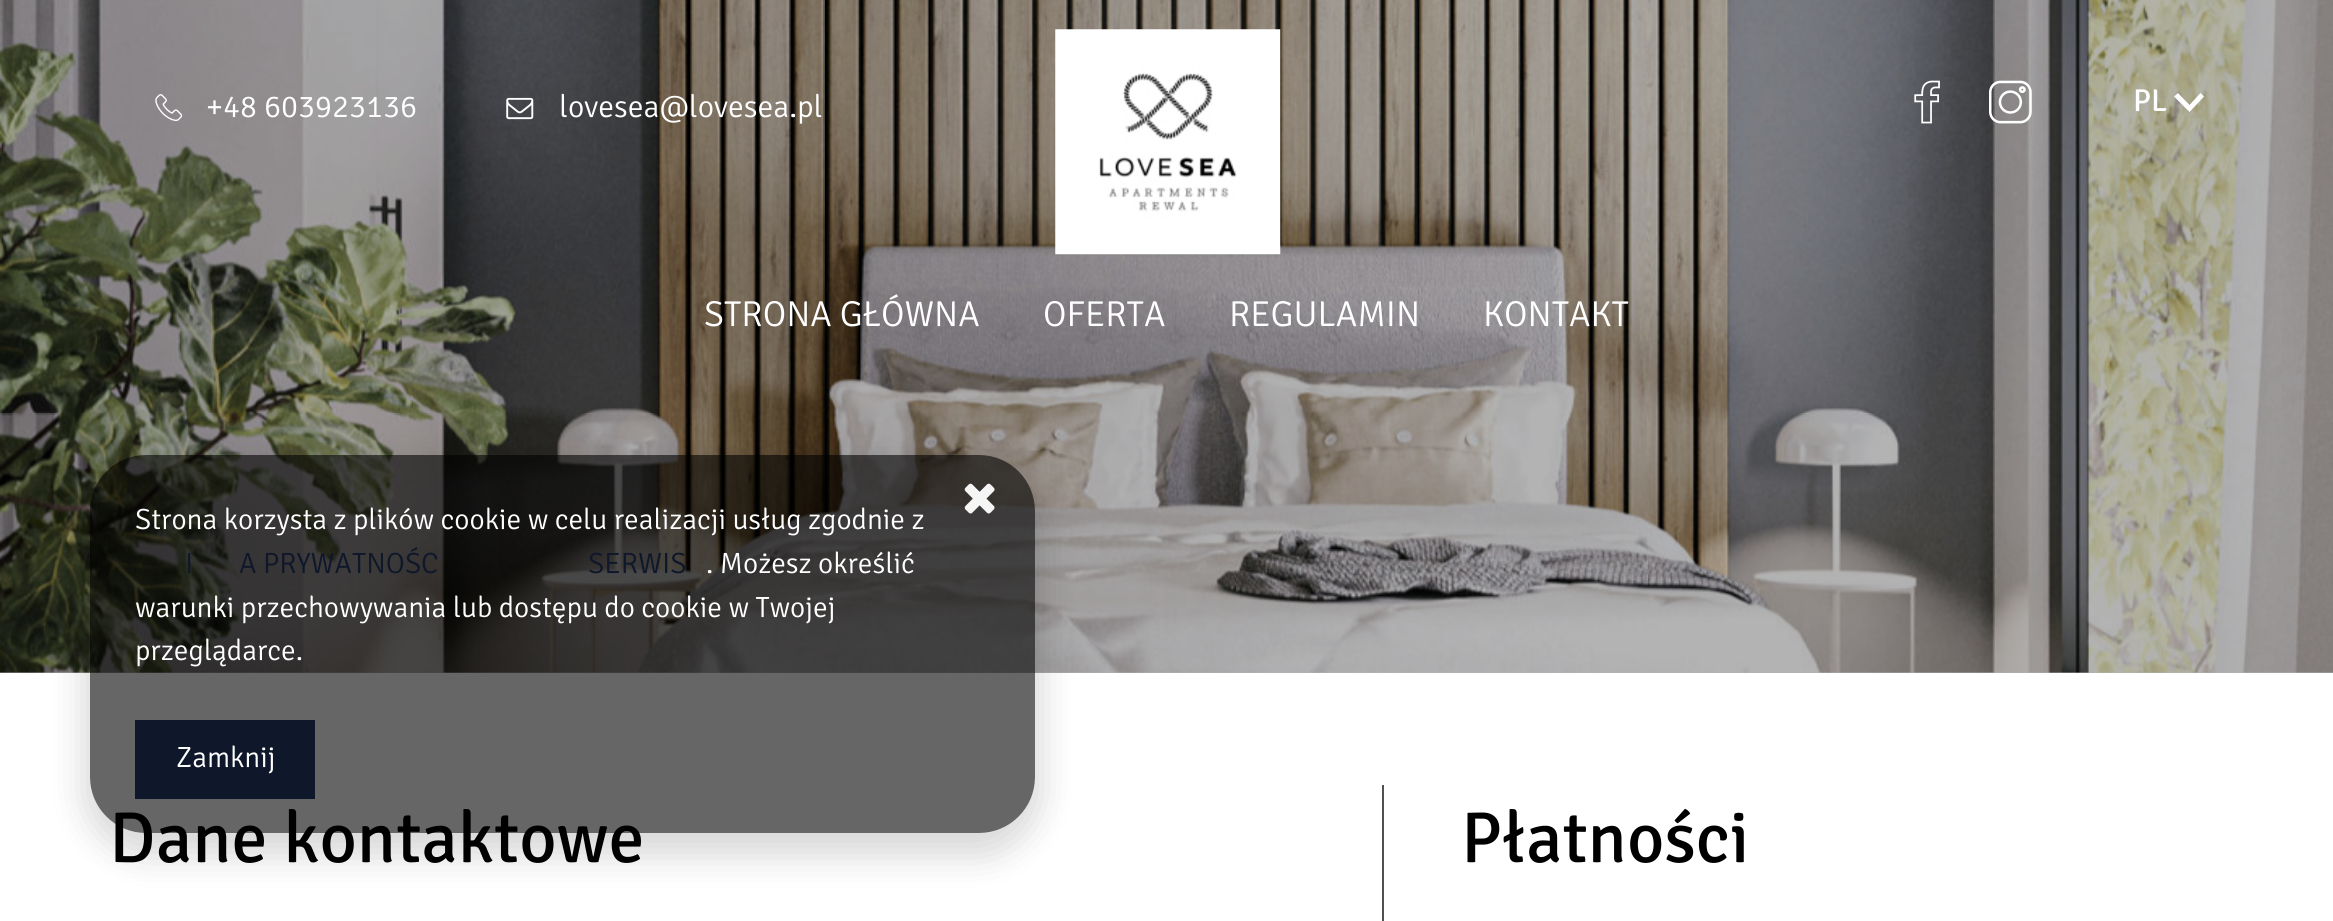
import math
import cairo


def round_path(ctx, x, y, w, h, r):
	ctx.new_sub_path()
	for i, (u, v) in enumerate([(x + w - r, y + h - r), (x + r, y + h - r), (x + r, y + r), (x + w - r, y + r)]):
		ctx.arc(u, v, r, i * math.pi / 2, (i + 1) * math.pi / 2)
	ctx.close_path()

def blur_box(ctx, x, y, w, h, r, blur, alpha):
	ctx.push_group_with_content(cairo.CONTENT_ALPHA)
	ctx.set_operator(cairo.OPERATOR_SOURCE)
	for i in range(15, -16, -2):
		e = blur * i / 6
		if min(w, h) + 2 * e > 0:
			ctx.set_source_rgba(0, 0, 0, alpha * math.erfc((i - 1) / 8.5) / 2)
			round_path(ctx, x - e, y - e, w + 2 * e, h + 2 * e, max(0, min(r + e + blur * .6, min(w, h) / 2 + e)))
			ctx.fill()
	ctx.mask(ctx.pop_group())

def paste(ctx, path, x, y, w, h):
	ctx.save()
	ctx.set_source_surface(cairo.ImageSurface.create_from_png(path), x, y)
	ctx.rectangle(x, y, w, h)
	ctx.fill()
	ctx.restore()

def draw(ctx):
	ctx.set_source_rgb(1, 1, 1)
	ctx.paint()
	ctx.set_source_rgb(0.702, 0.702, 0.702)
	ctx.rectangle(0, 672, 2333, 1)
	ctx.fill()
	paste(ctx, 'media/7.png', 0, 0, 2333, 673)
	paste(ctx, 'media/1.png', 155, 94, 28, 28)
	ctx.select_font_face('Signika Light')
	ctx.set_font_size(31.5)
	ctx.set_source_rgb(1, 1, 1)
	ctx.move_to(206, 117)
	ctx.show_text('+48 603923136')
	paste(ctx, 'media/2.png', 506, 97, 28, 23)
	ctx.move_to(559, 117)
	ctx.show_text('lovesea@lovesea.pl')
	paste(ctx, 'media/3.png', 1914, 80, 26, 44)
	paste(ctx, 'media/4.png', 1989, 80, 43, 44)
	ctx.select_font_face('Signika')
	ctx.move_to(2133, 111)
	ctx.show_text('PL')
	ctx.new_path()
	ctx.move_to(2200.5, 93)
	ctx.line_to(2189.5, 105)
	ctx.line_to(2178, 93)
	ctx.line_to(2174, 96.5)
	ctx.line_to(2189.5, 112)
	ctx.line_to(2204, 96.5)
	ctx.close_path()
	ctx.fill()
	paste(ctx, 'media/5.png', 1055, 29, 226, 226)
	ctx.select_font_face('Signika Light')
	ctx.set_font_size(36)
	for x, y, s in [
		(704, 326, 'STRONA GŁÓWNA'),
		(1043, 326, 'OFERTA'),
		(1229, 326, 'REGULAMIN'),
		(1483, 326, 'KONTAKT'),
	]:
		ctx.move_to(x, y)
		ctx.show_text(s)
	ctx.save()
	ctx.set_fill_rule(cairo.FILL_RULE_EVEN_ODD)
	ctx.new_path()
	ctx.move_to(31, 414)
	ctx.line_to(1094, 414)
	ctx.line_to(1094, 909)
	ctx.line_to(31, 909)
	ctx.close_path()
	ctx.move_to(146, 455)
	ctx.line_to(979, 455)
	ctx.curve_to(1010, 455, 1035, 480, 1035, 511)
	ctx.line_to(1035, 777)
	ctx.curve_to(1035, 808, 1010, 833, 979, 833)
	ctx.line_to(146, 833)
	ctx.curve_to(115, 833, 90, 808, 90, 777)
	ctx.line_to(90, 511)
	ctx.curve_to(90, 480, 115, 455, 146, 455)
	ctx.close_path()
	ctx.clip()
	ctx.set_source_rgb(0, 0, 0)
	blur_box(ctx, 83, 466, 959, 391, 63, 17, 0.15)
	ctx.restore()
	ctx.select_font_face('Signika')
	ctx.set_font_size(72)
	ctx.set_source_rgb(0, 0, 0)
	ctx.move_to(109, 862)
	ctx.show_text('Dane kontaktowe')
	ctx.set_source_rgba(0, 0, 0, 0.6)
	round_path(ctx, 90, 455, 945, 378, 56)
	ctx.fill()
	paste(ctx, 'media/6.png', 964, 483, 31, 31)
	ctx.select_font_face('Signika Light')
	ctx.set_font_size(29.25)
	ctx.set_source_rgb(1, 1, 1)
	ctx.move_to(135, 529)
	ctx.show_text('Strona korzysta z plików cookie w celu realizacji usług zgodnie z')
	ctx.set_source_rgb(0.059, 0.09, 0.165)
	for x, y, s in [
		(185, 573, 'I'),
		(239, 573, 'A PRYWATNOŚC'),
		(588, 573, 'SERWIS'),
	]:
		ctx.move_to(x, y)
		ctx.show_text(s)
	ctx.set_source_rgb(1, 1, 1)
	for x, y, s in [
		(706, 573, '. Możesz określić'),
		(135, 617, 'warunki przechowywania lub dostępu do cookie w Twojej'),
		(135, 660, 'przeglądarce.'),
	]:
		ctx.move_to(x, y)
		ctx.show_text(s)
	ctx.set_source_rgb(0.059, 0.09, 0.165)
	ctx.rectangle(135, 720, 180, 79)
	ctx.fill()
	ctx.set_source_rgb(1, 1, 1)
	ctx.move_to(176, 767)
	ctx.show_text('Zamknij')
	ctx.set_source_rgb(0.318, 0.318, 0.318)
	ctx.rectangle(1382, 785, 2, 136)
	ctx.fill()
	ctx.select_font_face('Signika')
	ctx.set_font_size(72)
	ctx.set_source_rgb(0, 0, 0)
	ctx.move_to(1461, 862)
	ctx.show_text('Płatności')


surface = cairo.ImageSurface(cairo.FORMAT_RGB24, 2333, 921)
ctx = cairo.Context(surface)
options = cairo.FontOptions()
options.set_hint_metrics(cairo.HINT_METRICS_OFF)
options.set_hint_style(cairo.HINT_STYLE_NONE)
ctx.set_font_options(options)
ctx.set_miter_limit(4)
draw(ctx)
surface.write_to_png('image.png')
